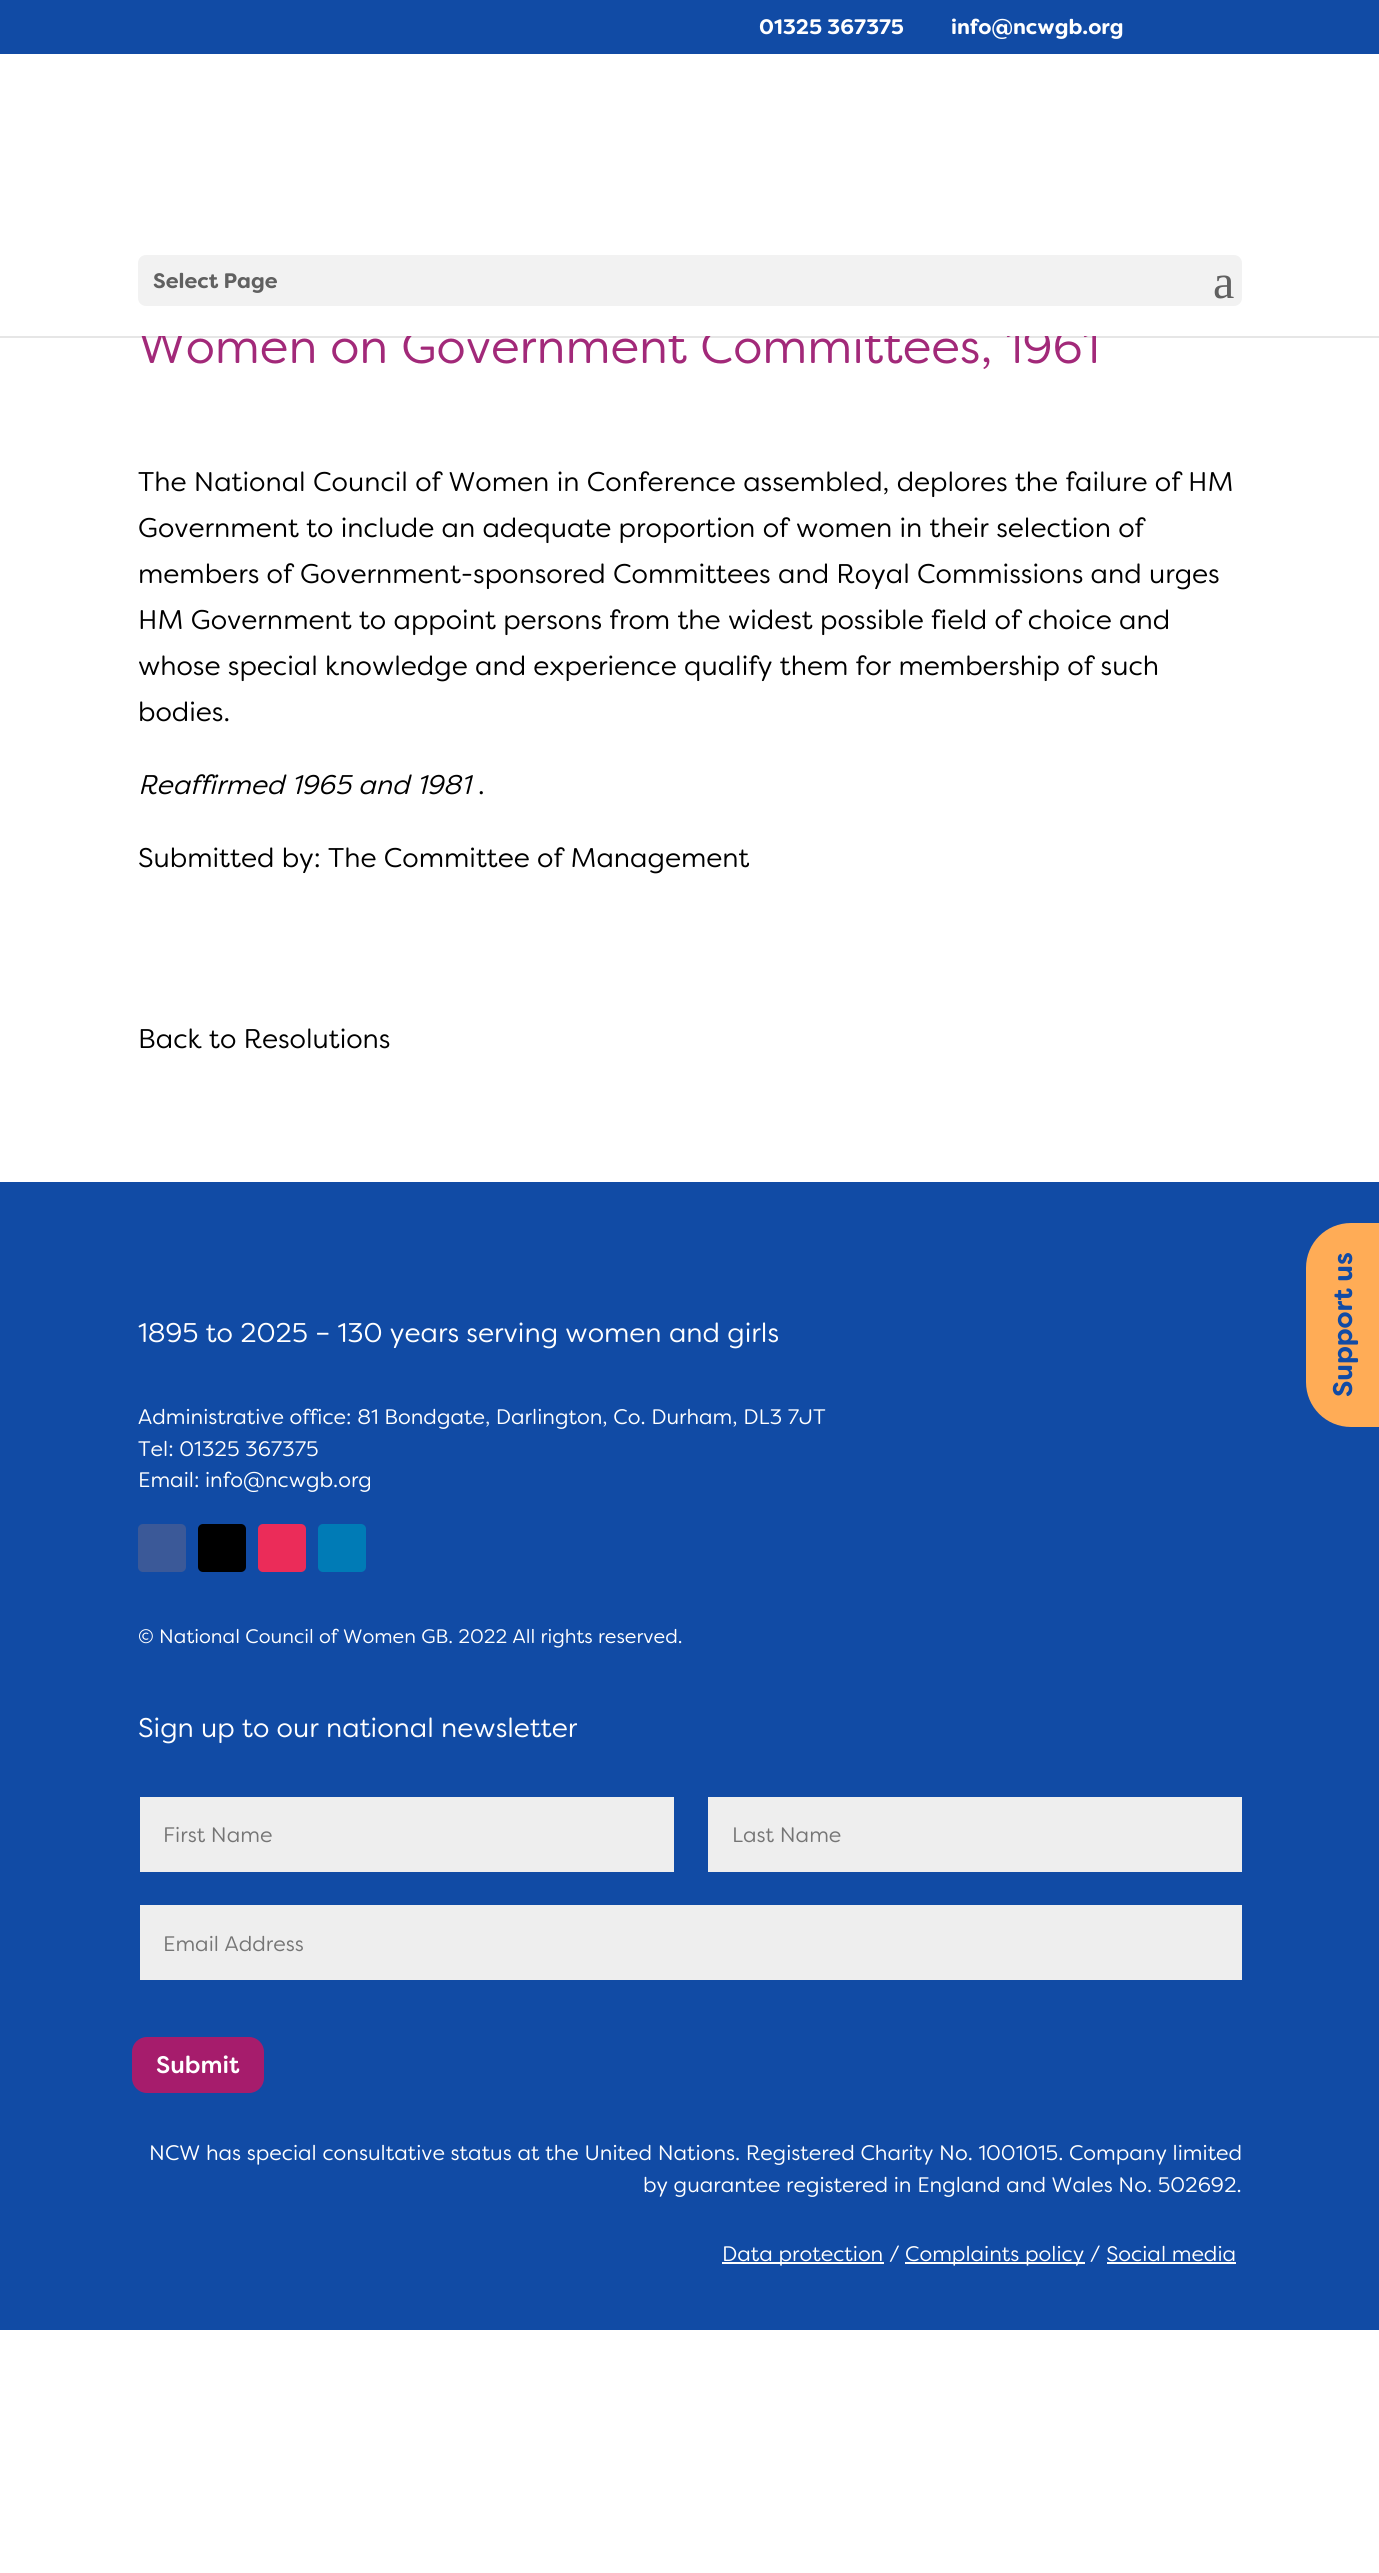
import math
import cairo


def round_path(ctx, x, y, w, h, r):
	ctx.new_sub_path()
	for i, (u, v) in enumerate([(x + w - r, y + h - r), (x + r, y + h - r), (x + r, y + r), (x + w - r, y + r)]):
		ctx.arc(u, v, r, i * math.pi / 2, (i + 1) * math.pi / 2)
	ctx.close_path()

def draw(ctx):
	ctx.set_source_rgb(1, 1, 1)
	ctx.paint()
	ctx.set_source_rgb(0.067, 0.294, 0.647)
	ctx.rectangle(0, 0, 1379, 54)
	ctx.fill()
	ctx.select_font_face('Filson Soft', cairo.FONT_SLANT_NORMAL, cairo.FONT_WEIGHT_BOLD)
	ctx.set_font_size(21)
	ctx.set_source_rgb(1, 1, 1)
	ctx.move_to(759, 34)
	ctx.show_text('01325 367375')
	ctx.move_to(951, 34)
	ctx.show_text('info@ncwgb.org')
	ctx.set_source_rgba(0, 0, 0, 0.1)
	ctx.rectangle(0, 336, 1379, 2)
	ctx.fill()
	ctx.select_font_face('Filson Soft')
	ctx.set_font_size(48)
	ctx.set_source_rgb(0.635, 0.161, 0.475)
	ctx.move_to(138, 363)
	ctx.show_text('Women on Government Committees, 1961')
	ctx.set_source_rgb(1, 1, 1)
	ctx.rectangle(139, 328, 958, 8)
	ctx.fill()
	ctx.set_source_rgb(0.949, 0.949, 0.949)
	round_path(ctx, 138, 255, 1104, 51, 8)
	ctx.fill()
	ctx.select_font_face('Filson Soft', cairo.FONT_SLANT_NORMAL, cairo.FONT_WEIGHT_BOLD)
	ctx.set_font_size(21)
	ctx.set_source_rgb(0.38, 0.38, 0.38)
	ctx.move_to(153, 288)
	ctx.show_text('Select Page')
	ctx.select_font_face('Liberation Serif')
	ctx.set_font_size(48)
	ctx.move_to(1213, 298)
	ctx.show_text('a')
	ctx.select_font_face('Filson Soft')
	ctx.set_font_size(27)
	ctx.set_source_rgb(0, 0, 0)
	for x, y, s in [
		(138, 491, 'The National Council of Women in Conference assembled, deplores the failure of HM'),
		(138, 537, 'Government to include an adequate proportion of women in their selection of'),
		(138, 583, 'members of Government-sponsored Committees and Royal Commissions and urges'),
		(138, 629, 'HM Government to appoint persons from the widest possible field of choice and'),
		(138, 675, 'whose special knowledge and experience qualify them for membership of such'),
		(138, 721, 'bodies.'),
	]:
		ctx.move_to(x, y)
		ctx.show_text(s)
	ctx.select_font_face('Filson Soft', cairo.FONT_SLANT_ITALIC)
	ctx.move_to(138, 794)
	ctx.show_text('Reaffirmed 1965 and 1981')
	ctx.select_font_face('Filson Soft')
	for x, y, s in [
		(478, 794, '.'),
		(138, 867, 'Submitted by: The Committee of Management'),
		(138, 1048, 'Back to Resolutions'),
	]:
		ctx.move_to(x, y)
		ctx.show_text(s)
	ctx.set_source_rgb(0.067, 0.294, 0.647)
	ctx.rectangle(0, 1182, 1379, 1148)
	ctx.fill()
	ctx.set_source_rgb(1, 1, 1)
	ctx.move_to(138, 1342)
	ctx.show_text('1895 to 2025 – 130 years serving women and girls')
	ctx.set_font_size(21)
	for x, y, s in [
		(138, 1424, 'Administrative office: 81 Bondgate, Darlington, Co. Durham, DL3 7JT'),
		(138, 1456, 'Tel: 01325 367375'),
		(138, 1487, 'Email: info@ncwgb.org'),
	]:
		ctx.move_to(x, y)
		ctx.show_text(s)
	ctx.set_source_rgb(0.231, 0.349, 0.596)
	round_path(ctx, 138, 1524, 48, 48, 5)
	ctx.fill()
	ctx.set_source_rgb(0, 0, 0)
	round_path(ctx, 198, 1524, 48, 48, 5)
	ctx.fill()
	ctx.set_source_rgb(0.918, 0.173, 0.349)
	round_path(ctx, 258, 1524, 48, 48, 5)
	ctx.fill()
	ctx.set_source_rgb(0, 0.482, 0.714)
	round_path(ctx, 318, 1524, 48, 48, 5)
	ctx.fill()
	ctx.set_font_size(19.5)
	ctx.set_source_rgb(1, 1, 1)
	ctx.move_to(138, 1643)
	ctx.show_text('© National Council of Women GB. 2022 All rights reserved.')
	ctx.set_font_size(27)
	ctx.move_to(138, 1737)
	ctx.show_text('Sign up to our national newsletter')
	ctx.set_source_rgb(0.933, 0.933, 0.933)
	ctx.rectangle(140, 1797, 534, 75)
	ctx.fill()
	ctx.set_font_size(21)
	ctx.set_source_rgb(0.459, 0.459, 0.459)
	ctx.move_to(163, 1842)
	ctx.show_text('First Name')
	ctx.set_source_rgb(0.933, 0.933, 0.933)
	ctx.rectangle(708, 1797, 534, 75)
	ctx.fill()
	ctx.set_source_rgb(0.459, 0.459, 0.459)
	ctx.move_to(732, 1842)
	ctx.show_text('Last Name')
	ctx.set_source_rgb(0.933, 0.933, 0.933)
	ctx.rectangle(140, 1905, 1102, 75)
	ctx.fill()
	ctx.set_source_rgb(0.459, 0.459, 0.459)
	ctx.move_to(163, 1951)
	ctx.show_text('Email Address')
	ctx.set_source_rgb(0.651, 0.11, 0.424)
	round_path(ctx, 132, 2037, 132, 56, 15)
	ctx.fill()
	ctx.select_font_face('Filson Soft Medium')
	ctx.set_font_size(24)
	ctx.set_source_rgb(1, 1, 1)
	ctx.move_to(156, 2073)
	ctx.show_text('Submit')
	ctx.select_font_face('Filson Soft')
	ctx.set_font_size(21)
	ctx.move_to(149, 2160)
	ctx.show_text('NCW has special consultative status at the United Nations. Registered Charity No. 1001015. Company limited')
	ctx.move_to(643, 2192)
	ctx.show_text('by guarantee registered in England and Wales No. 502692.')
	ctx.rectangle(722, 2262, 162, 2)
	ctx.fill()
	ctx.move_to(722, 2261)
	ctx.show_text('Data protection /')
	ctx.rectangle(905, 2262, 180, 2)
	ctx.fill()
	ctx.move_to(905, 2261)
	ctx.show_text('Complaints policy / Social media')
	ctx.rectangle(1107, 2262, 129, 2)
	ctx.fill()
	ctx.set_source_rgb(1, 0.675, 0.337)
	ctx.new_path()
	ctx.move_to(1306, 1382)
	ctx.line_to(1306, 1268)
	ctx.curve_to(1306, 1243, 1326, 1223, 1351, 1223)
	ctx.line_to(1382, 1223)
	ctx.line_to(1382, 1427)
	ctx.line_to(1351, 1427)
	ctx.curve_to(1326, 1427, 1306, 1407, 1306, 1382)
	ctx.close_path()
	ctx.fill()
	ctx.select_font_face('Filson Soft', cairo.FONT_SLANT_NORMAL, cairo.FONT_WEIGHT_BOLD)
	ctx.set_font_size(27)
	ctx.set_source_rgb(0.067, 0.294, 0.647)
	ctx.save()
	ctx.translate(1352, 1397)
	ctx.rotate(-90 * math.pi / 180)
	ctx.move_to(0, 0)
	ctx.show_text('Support us')
	ctx.restore()


surface = cairo.ImageSurface(cairo.FORMAT_RGB24, 1379, 2573)
ctx = cairo.Context(surface)
options = cairo.FontOptions()
options.set_hint_metrics(cairo.HINT_METRICS_OFF)
options.set_hint_style(cairo.HINT_STYLE_NONE)
ctx.set_font_options(options)
ctx.set_miter_limit(4)
draw(ctx)
surface.write_to_png('image.png')
